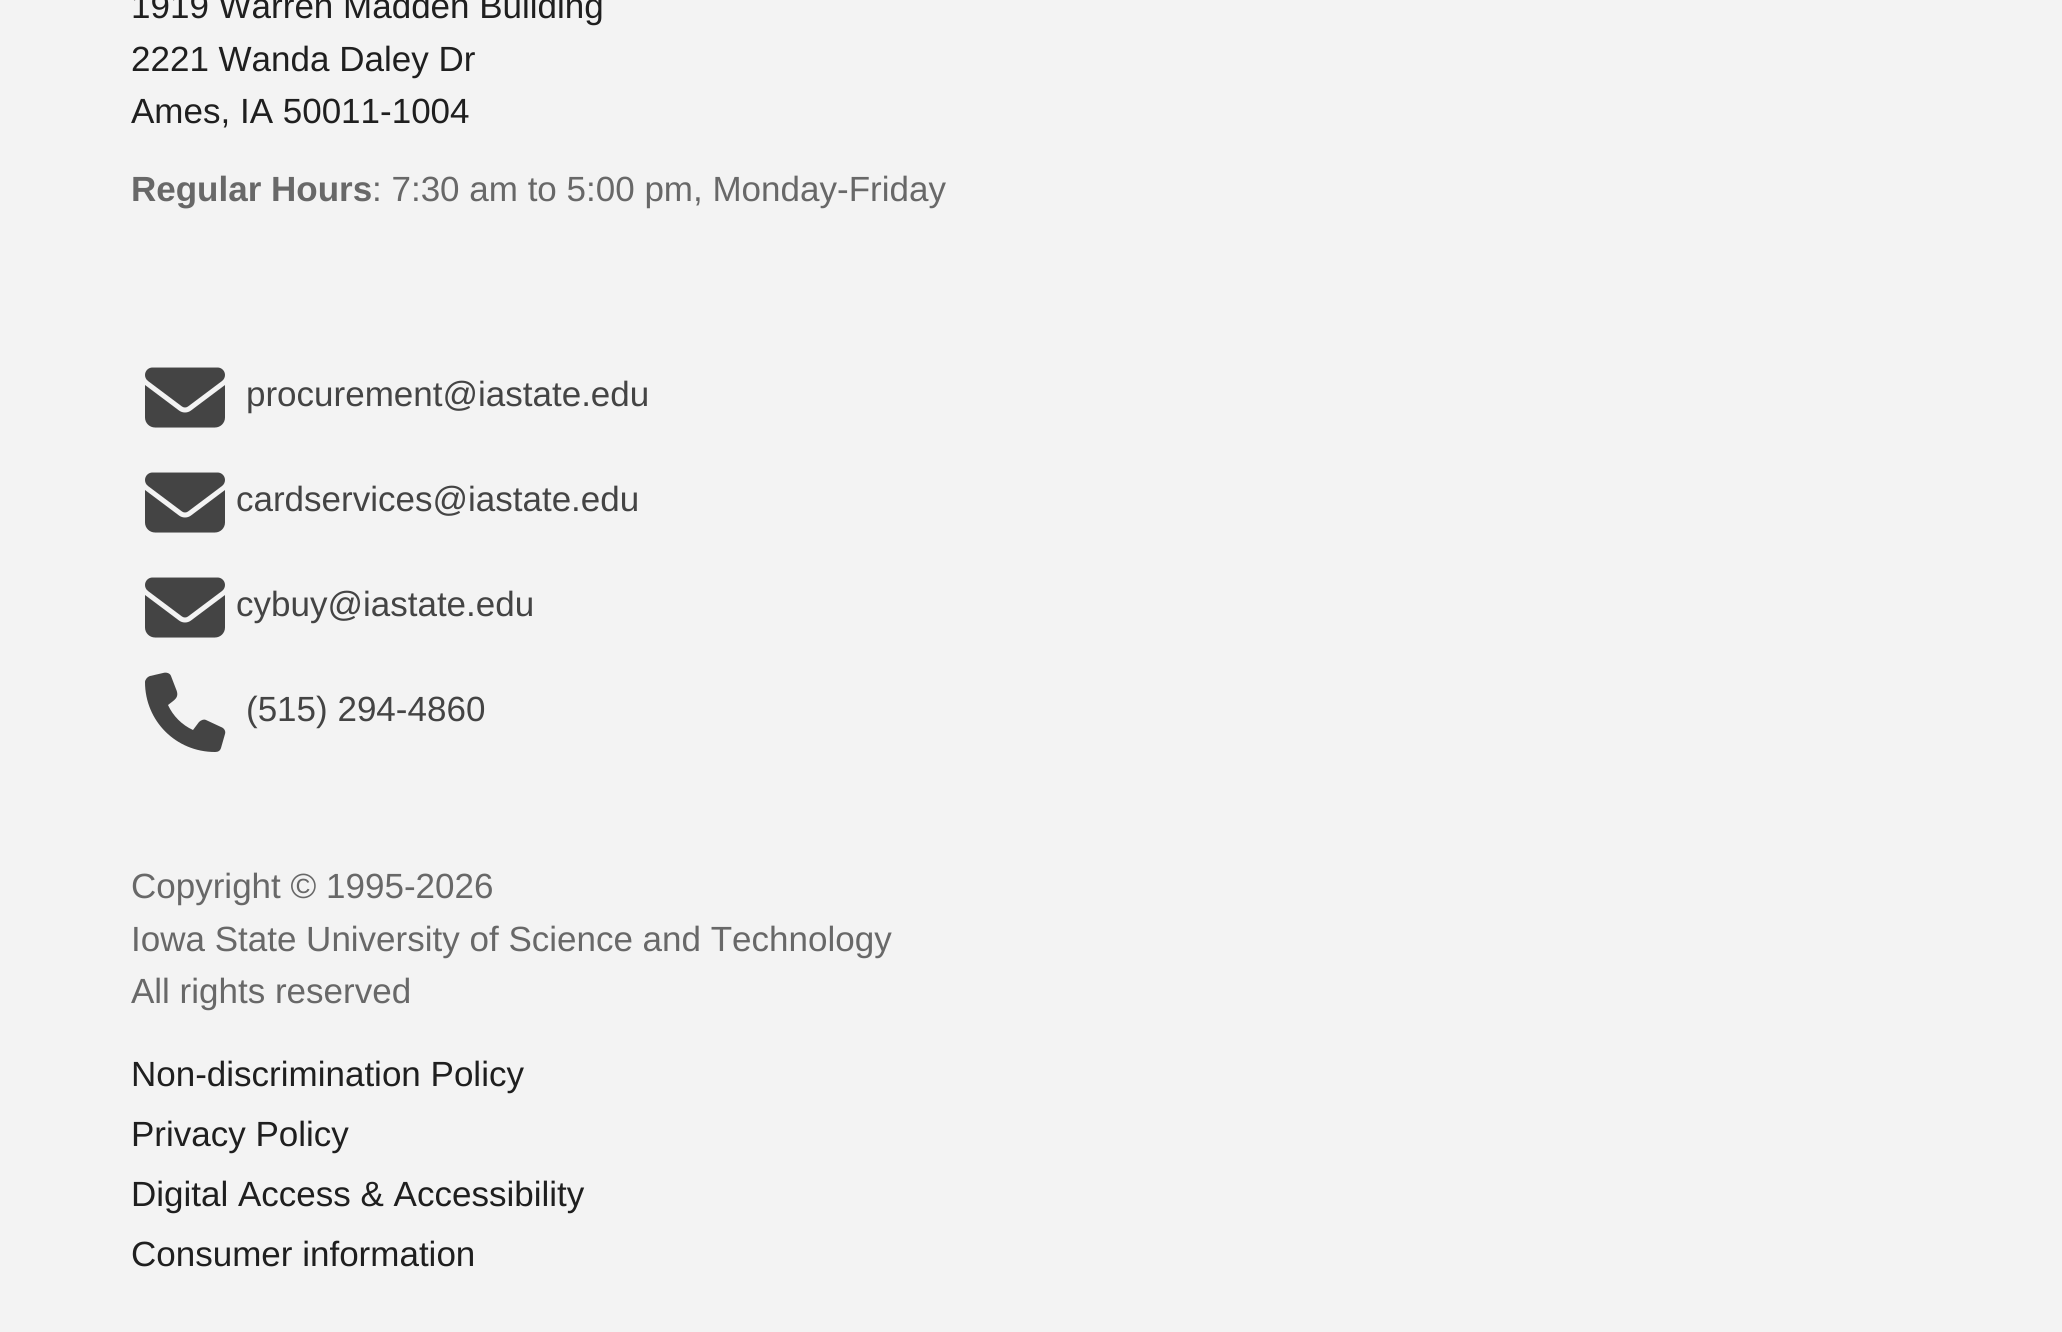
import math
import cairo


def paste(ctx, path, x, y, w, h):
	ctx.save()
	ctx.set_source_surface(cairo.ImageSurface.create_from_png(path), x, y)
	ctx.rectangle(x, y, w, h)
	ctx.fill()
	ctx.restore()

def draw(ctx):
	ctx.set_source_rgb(0.953, 0.953, 0.953)
	ctx.paint()
	ctx.select_font_face('Liberation Sans')
	ctx.set_font_size(35)
	ctx.set_source_rgb(0.122, 0.122, 0.122)
	for x, y, s in [
		(131, 18, '1919 Warren Madden Building'),
		(131, 71, '2221 Wanda Daley Dr'),
		(131, 123, 'Ames, IA 50011-1004'),
	]:
		ctx.move_to(x, y)
		ctx.show_text(s)
	ctx.select_font_face('Liberation Sans', cairo.FONT_SLANT_NORMAL, cairo.FONT_WEIGHT_BOLD)
	ctx.set_source_rgb(0.408, 0.408, 0.408)
	ctx.move_to(131, 201)
	ctx.show_text('Regular Hours')
	ctx.select_font_face('Liberation Sans')
	ctx.move_to(372, 201)
	ctx.show_text(': 7:30 am to 5:00 pm, Monday-Friday')
	paste(ctx, 'media/1.png', 145, 367, 80, 61)
	ctx.set_source_rgb(0.267, 0.267, 0.267)
	ctx.move_to(246, 406)
	ctx.show_text('procurement@iastate.edu')
	paste(ctx, 'media/1.png', 145, 472, 80, 61)
	ctx.move_to(236, 511)
	ctx.show_text('cardservices@iastate.edu')
	paste(ctx, 'media/1.png', 145, 577, 80, 61)
	ctx.move_to(236, 616)
	ctx.show_text('cybuy@iastate.edu')
	ctx.new_path()
	ctx.move_to(171, 676)
	ctx.curve_to(170, 673, 166, 672, 163, 673)
	ctx.line_to(150, 676)
	ctx.curve_to(147, 677, 145, 680, 145, 682)
	ctx.curve_to(145, 721, 176, 752, 215, 752)
	ctx.curve_to(218, 752, 220, 751, 221, 748)
	ctx.line_to(225, 734)
	ctx.curve_to(226, 731, 224, 728, 221, 727)
	ctx.line_to(206, 720)
	ctx.curve_to(204, 719, 201, 720, 199, 722)
	ctx.line_to(193, 730)
	ctx.curve_to(182, 725, 173, 716, 168, 705)
	ctx.curve_to(174, 700, 180, 698, 176, 689)
	ctx.close_path()
	ctx.fill()
	ctx.move_to(246, 721)
	ctx.show_text('(515) 294-4860')
	ctx.set_source_rgb(0.408, 0.408, 0.408)
	for x, y, s in [
		(131, 898, 'Copyright © 1995-2026'),
		(131, 951, 'Iowa State University of Science and Technology'),
		(131, 1003, 'All rights reserved'),
	]:
		ctx.move_to(x, y)
		ctx.show_text(s)
	ctx.set_source_rgb(0.122, 0.122, 0.122)
	for x, y, s in [
		(131, 1086, 'Non-discrimination Policy'),
		(131, 1146, 'Privacy Policy'),
		(131, 1206, 'Digital Access & Accessibility'),
		(131, 1266, 'Consumer information'),
	]:
		ctx.move_to(x, y)
		ctx.show_text(s)


surface = cairo.ImageSurface(cairo.FORMAT_RGB24, 2062, 1332)
ctx = cairo.Context(surface)
options = cairo.FontOptions()
options.set_hint_metrics(cairo.HINT_METRICS_OFF)
options.set_hint_style(cairo.HINT_STYLE_NONE)
ctx.set_font_options(options)
ctx.set_miter_limit(4)
draw(ctx)
surface.write_to_png('image.png')
